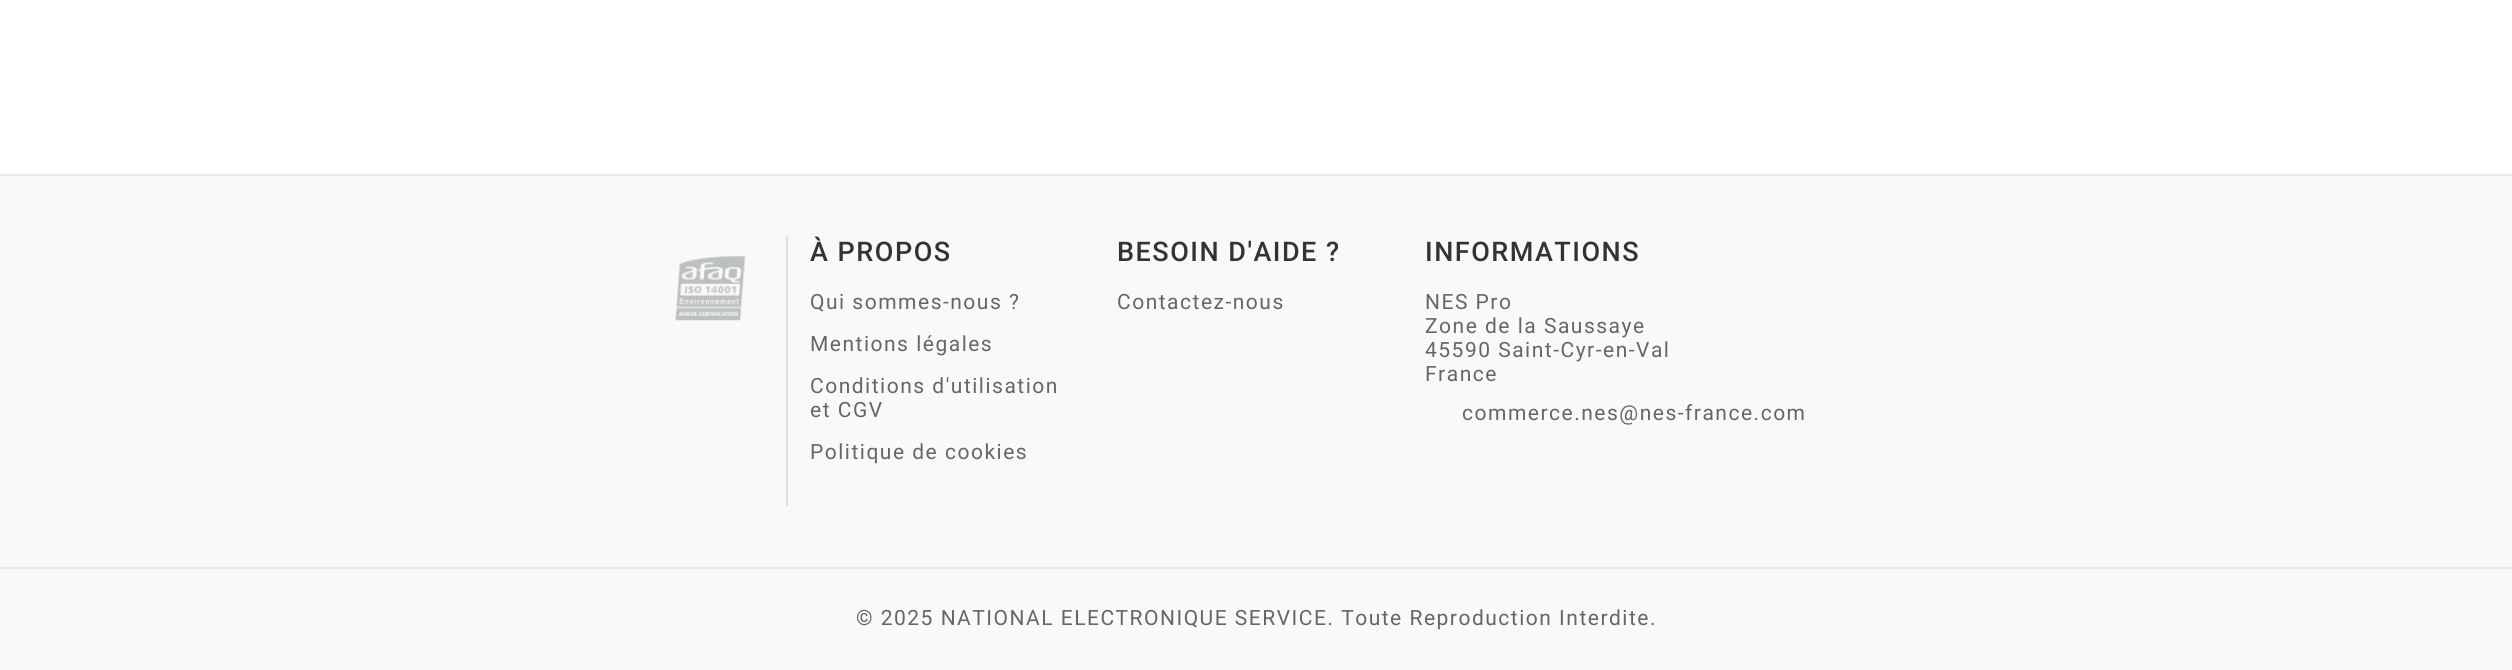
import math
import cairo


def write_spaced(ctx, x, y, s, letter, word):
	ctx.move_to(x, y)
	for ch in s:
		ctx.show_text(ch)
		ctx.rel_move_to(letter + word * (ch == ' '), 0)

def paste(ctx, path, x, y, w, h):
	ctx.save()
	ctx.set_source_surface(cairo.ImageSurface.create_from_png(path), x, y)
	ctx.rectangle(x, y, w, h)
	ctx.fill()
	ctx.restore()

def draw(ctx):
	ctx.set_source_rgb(1, 1, 1)
	ctx.paint()
	ctx.set_source_rgb(0.973, 0.976, 0.98)
	ctx.rectangle(0, 176, 2512, 494)
	ctx.fill()
	ctx.set_source_rgb(0.906, 0.91, 0.914)
	ctx.rectangle(0, 174, 2512, 2)
	ctx.fill()
	ctx.set_source_rgb(0.863, 0.875, 0.878)
	ctx.rectangle(786, 236, 2, 270)
	ctx.fill()
	paste(ctx, 'media/1.png', 675, 256, 71, 65)
	ctx.select_font_face('Roboto Medium')
	ctx.set_font_size(27)
	ctx.set_source_rgb(0.2, 0.2, 0.2)
	write_spaced(ctx, 810, 261, 'À PROPOS', 1.5, 0)
	ctx.select_font_face('Roboto')
	ctx.set_font_size(21)
	ctx.set_source_rgb(0.4, 0.4, 0.4)
	for x, y, s in [
		(810, 309, 'Qui sommes-nous ?'),
		(810, 351, 'Mentions légales'),
		(810, 393, 'Conditions d\'utilisation'),
		(810, 417, 'et CGV'),
		(810, 459, 'Politique de cookies'),
	]:
		write_spaced(ctx, x, y, s, 1.5, 0)
	ctx.select_font_face('Roboto Medium')
	ctx.set_font_size(27)
	ctx.set_source_rgb(0.2, 0.2, 0.2)
	write_spaced(ctx, 1117, 261, 'BESOIN D\'AIDE ?', 1.5, 0)
	ctx.select_font_face('Roboto')
	ctx.set_font_size(21)
	ctx.set_source_rgb(0.4, 0.4, 0.4)
	write_spaced(ctx, 1117, 309, 'Contactez-nous', 1.5, 0)
	ctx.select_font_face('Roboto Medium')
	ctx.set_font_size(27)
	ctx.set_source_rgb(0.2, 0.2, 0.2)
	write_spaced(ctx, 1425, 261, 'INFORMATIONS', 1.5, 0)
	ctx.select_font_face('Roboto')
	ctx.set_font_size(21)
	ctx.set_source_rgb(0.4, 0.4, 0.4)
	for x, y, s in [
		(1425, 309, 'NES Pro'),
		(1425, 333, 'Zone de la Saussaye'),
		(1425, 357, '45590 Saint-Cyr-en-Val'),
		(1425, 381, 'France'),
		(1462, 420, 'commerce.nes@nes-france.com'),
	]:
		write_spaced(ctx, x, y, s, 1.5, 0)
	ctx.set_source_rgb(0.906, 0.91, 0.914)
	ctx.rectangle(0, 567, 2512, 2)
	ctx.fill()
	ctx.set_source_rgb(0.4, 0.4, 0.4)
	write_spaced(ctx, 856, 625, '© 2025 NATIONAL ELECTRONIQUE SERVICE. Toute Reproduction Interdite.', 1.5, 0)


surface = cairo.ImageSurface(cairo.FORMAT_RGB24, 2512, 670)
ctx = cairo.Context(surface)
options = cairo.FontOptions()
options.set_hint_metrics(cairo.HINT_METRICS_OFF)
options.set_hint_style(cairo.HINT_STYLE_NONE)
ctx.set_font_options(options)
ctx.set_miter_limit(4)
draw(ctx)
surface.write_to_png('image.png')
